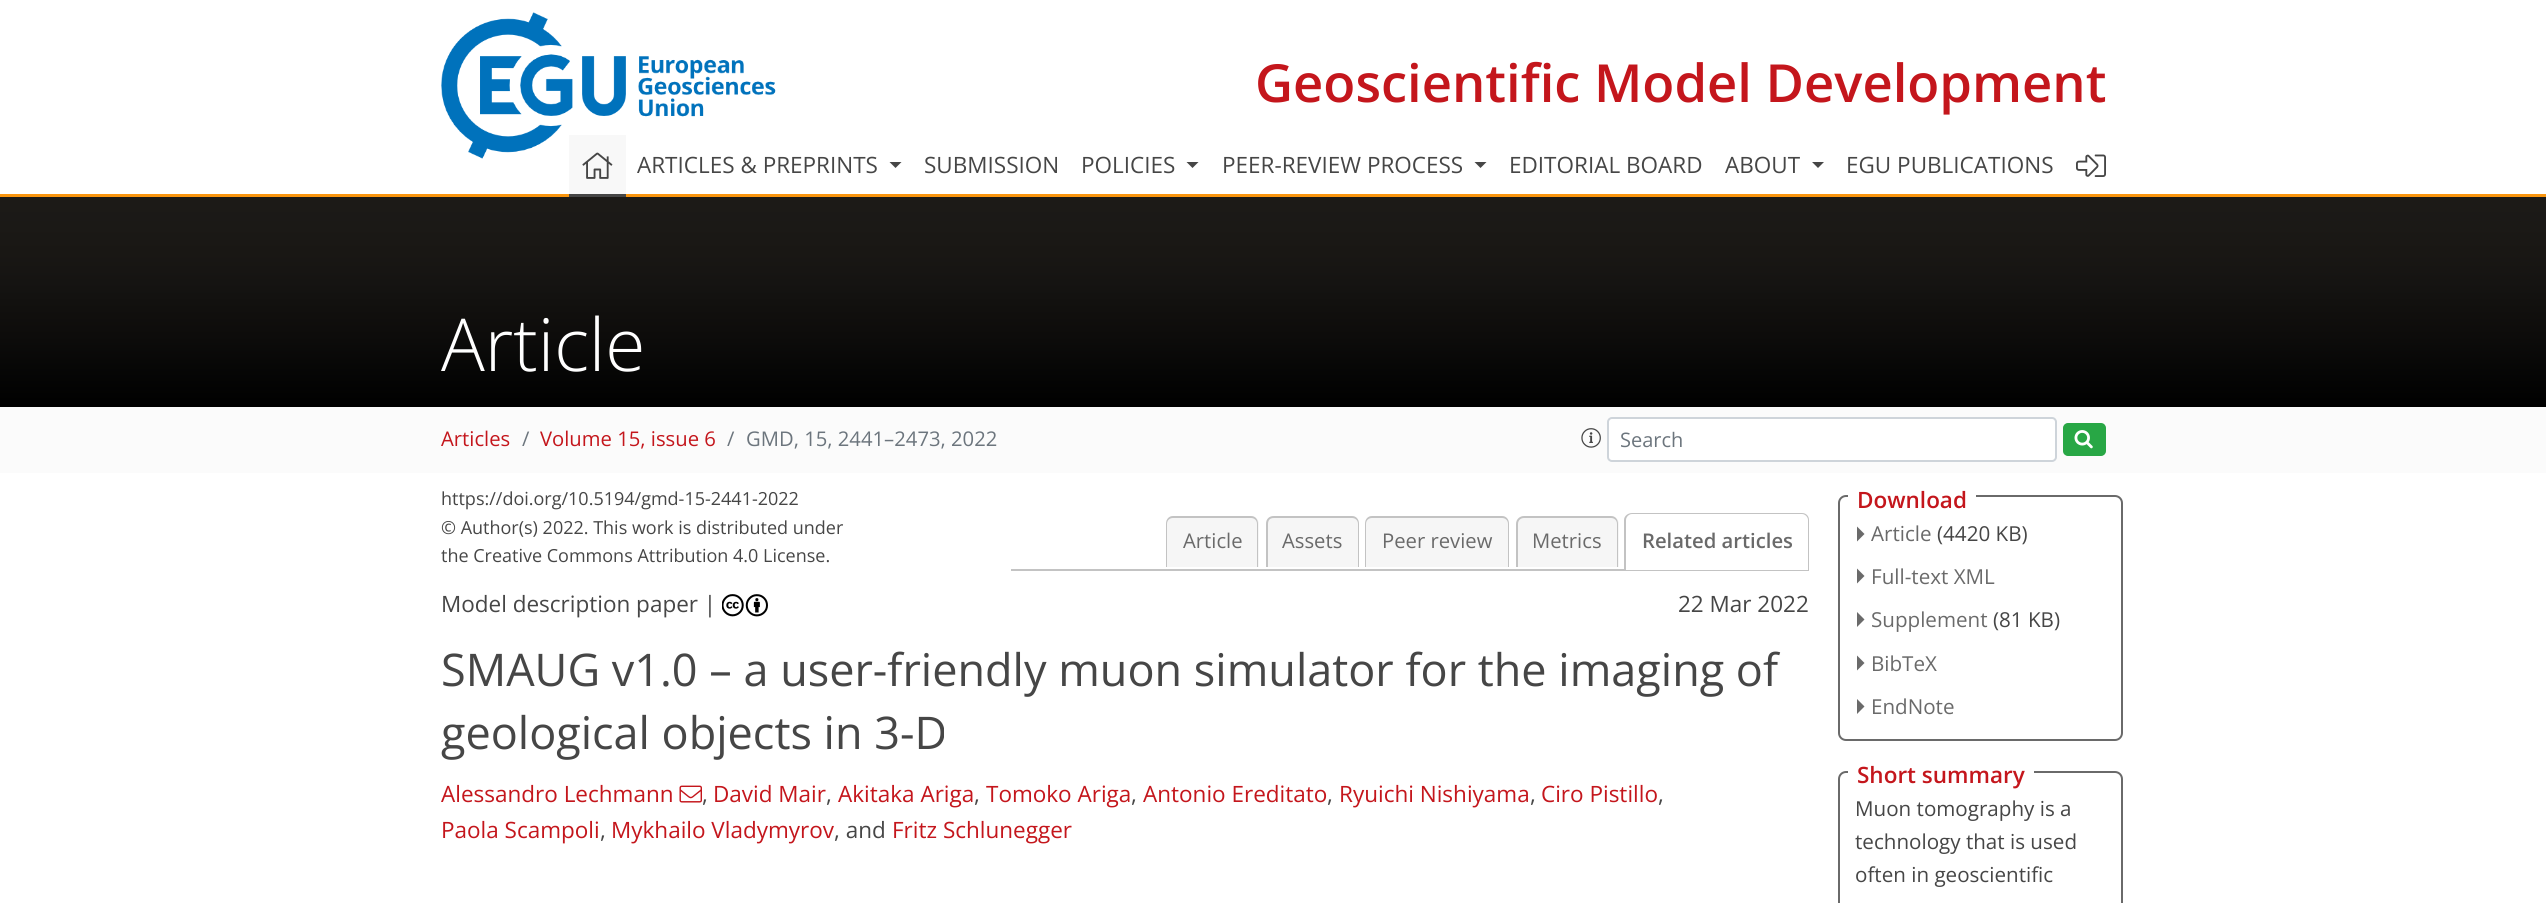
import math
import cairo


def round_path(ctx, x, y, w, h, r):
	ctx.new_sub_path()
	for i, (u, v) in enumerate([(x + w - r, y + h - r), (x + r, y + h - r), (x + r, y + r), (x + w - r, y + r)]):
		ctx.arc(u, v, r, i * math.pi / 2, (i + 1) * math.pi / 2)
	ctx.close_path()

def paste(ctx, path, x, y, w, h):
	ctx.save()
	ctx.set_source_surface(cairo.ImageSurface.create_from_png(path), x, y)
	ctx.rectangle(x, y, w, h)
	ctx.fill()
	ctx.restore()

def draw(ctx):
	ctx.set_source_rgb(1, 1, 1)
	ctx.paint()
	paste(ctx, 'media/1.png', 441, 12, 335, 147)
	ctx.select_font_face('Open Sans SemiBold')
	ctx.set_font_size(52.5)
	ctx.set_source_rgb(0.769, 0.086, 0.11)
	ctx.move_to(1255, 102)
	ctx.show_text('Geoscientific Model Development')
	ctx.set_source_rgb(0.973, 0.584, 0.055)
	ctx.rectangle(0, 194, 2546, 3)
	ctx.fill()
	ctx.set_source_rgb(0.969, 0.969, 0.969)
	ctx.rectangle(569, 135, 57, 59)
	ctx.fill()
	ctx.set_source_rgb(0.275, 0.275, 0.275)
	ctx.rectangle(569, 194, 57, 3)
	ctx.fill()
	paste(ctx, 'media/2.png', 582, 152, 31, 27)
	ctx.select_font_face('Open Sans')
	ctx.set_font_size(22.5)
	ctx.move_to(637, 173)
	ctx.show_text('ARTICLES & PREPRINTS')
	ctx.new_path()
	ctx.move_to(889.5, 162)
	ctx.line_to(901.5, 162)
	ctx.line_to(895.5, 168)
	ctx.close_path()
	ctx.fill()
	ctx.move_to(924, 173)
	ctx.show_text('SUBMISSION')
	ctx.move_to(1081, 173)
	ctx.show_text('POLICIES')
	ctx.new_path()
	ctx.move_to(1186.5, 162)
	ctx.line_to(1198.5, 162)
	ctx.line_to(1192.5, 168)
	ctx.close_path()
	ctx.fill()
	ctx.move_to(1222, 173)
	ctx.show_text('PEER-REVIEW PROCESS')
	ctx.new_path()
	ctx.move_to(1474.5, 162)
	ctx.line_to(1486.5, 162)
	ctx.line_to(1480.5, 168)
	ctx.close_path()
	ctx.fill()
	ctx.move_to(1509, 173)
	ctx.show_text('EDITORIAL BOARD')
	ctx.move_to(1725, 173)
	ctx.show_text('ABOUT')
	ctx.new_path()
	ctx.move_to(1812, 162)
	ctx.line_to(1824, 162)
	ctx.line_to(1818, 168)
	ctx.close_path()
	ctx.fill()
	ctx.move_to(1846, 173)
	ctx.show_text('EGU PUBLICATIONS')
	paste(ctx, 'media/3.png', 2076, 154, 30, 23)
	gradient = cairo.LinearGradient(1274, 407, 1274, 197)
	gradient.add_color_stop_rgba(0, 0, 0, 0, 1)
	gradient.add_color_stop_rgba(0.19, 0.027, 0.027, 0.024, 1)
	gradient.add_color_stop_rgba(0.34, 0.051, 0.047, 0.043, 1)
	gradient.add_color_stop_rgba(0.47, 0.067, 0.063, 0.055, 1)
	gradient.add_color_stop_rgba(0.56, 0.078, 0.075, 0.067, 1)
	gradient.add_color_stop_rgba(0.65, 0.09, 0.082, 0.075, 1)
	gradient.add_color_stop_rgba(0.73, 0.098, 0.09, 0.078, 1)
	gradient.add_color_stop_rgba(0.8, 0.102, 0.094, 0.082, 1)
	gradient.add_color_stop_rgba(0.86, 0.106, 0.098, 0.086, 1)
	gradient.add_color_stop_rgba(0.91, 0.106, 0.098, 0.09, 1)
	gradient.add_color_stop_rgba(0.95, 0.11, 0.102, 0.09, 1)
	gradient.add_color_stop_rgba(1, 0.11, 0.102, 0.09, 1)
	ctx.set_source(gradient)
	ctx.rectangle(0, 197, 2546, 210)
	ctx.fill()
	ctx.select_font_face('Open Sans Light')
	ctx.set_font_size(73)
	ctx.set_source_rgb(1, 1, 1)
	ctx.move_to(441, 371)
	ctx.show_text('Article')
	ctx.set_source_rgb(0.984, 0.984, 0.984)
	ctx.rectangle(0, 407, 2546, 66)
	ctx.fill()
	ctx.select_font_face('Open Sans')
	ctx.set_font_size(20.25)
	ctx.set_source_rgb(0.769, 0.086, 0.11)
	ctx.move_to(441, 446)
	ctx.show_text('Articles')
	ctx.set_source_rgb(0.424, 0.459, 0.49)
	ctx.move_to(522, 446)
	ctx.show_text('/')
	ctx.set_source_rgb(0.769, 0.086, 0.11)
	ctx.move_to(540, 446)
	ctx.show_text('Volume 15, issue 6')
	ctx.set_source_rgb(0.424, 0.459, 0.49)
	ctx.move_to(727, 446)
	ctx.show_text('/')
	ctx.move_to(746, 446)
	ctx.show_text('GMD, 15, 2441–2473, 2022')
	paste(ctx, 'media/4.png', 1581, 428, 20, 20)
	ctx.set_source_rgb(1, 1, 1)
	round_path(ctx, 1608, 418, 448, 43, 4)
	ctx.fill_preserve()
	ctx.set_source_rgb(0.808, 0.831, 0.855)
	ctx.stroke()
	ctx.set_font_size(20)
	ctx.set_source_rgb(0.424, 0.459, 0.49)
	ctx.move_to(1620, 447)
	ctx.show_text('Search')
	ctx.set_source_rgb(0.157, 0.655, 0.271)
	round_path(ctx, 2064, 424, 41, 31, 4)
	ctx.fill_preserve()
	ctx.stroke()
	paste(ctx, 'media/5.png', 2074, 430, 19, 19)
	ctx.set_font_size(18)
	ctx.set_source_rgb(0.275, 0.275, 0.275)
	for x, y, s in [
		(441, 505, 'https://doi.org/10.5194/gmd-15-2441-2022'),
		(441, 534, '© Author(s) 2022. This work is distributed under'),
		(441, 562, 'the Creative Commons Attribution 4.0 License.'),
	]:
		ctx.move_to(x, y)
		ctx.show_text(s)
	ctx.set_source_rgb(0.765, 0.765, 0.765)
	ctx.rectangle(1011, 569, 798, 2)
	ctx.fill()
	ctx.set_source_rgb(0.961, 0.961, 0.961)
	ctx.new_path()
	ctx.move_to(1174, 516)
	ctx.line_to(1251, 516)
	ctx.curve_to(1255.5, 516, 1259, 519.5, 1259, 524)
	ctx.line_to(1259, 567)
	ctx.line_to(1166, 567)
	ctx.line_to(1166, 524)
	ctx.curve_to(1166, 519.5, 1169.5, 516, 1174, 516)
	ctx.close_path()
	ctx.fill()
	ctx.set_source_rgb(0.765, 0.765, 0.765)
	ctx.set_fill_rule(cairo.FILL_RULE_EVEN_ODD)
	ctx.new_path()
	ctx.move_to(1173, 516)
	ctx.line_to(1251, 516)
	ctx.curve_to(1255, 516, 1258, 519, 1258, 524)
	ctx.line_to(1258, 567)
	ctx.line_to(1166, 567)
	ctx.line_to(1166, 524)
	ctx.curve_to(1166, 519, 1169, 516, 1173, 516)
	ctx.close_path()
	ctx.move_to(1173, 518)
	ctx.line_to(1251, 518)
	ctx.curve_to(1254, 518, 1257, 520, 1257, 524)
	ctx.line_to(1257, 567)
	ctx.line_to(1167, 567)
	ctx.line_to(1167, 524)
	ctx.curve_to(1167, 520, 1170, 518, 1173, 518)
	ctx.close_path()
	ctx.fill()
	ctx.set_font_size(20.25)
	ctx.set_source_rgb(0.416, 0.416, 0.416)
	ctx.move_to(1183, 548)
	ctx.show_text('Article')
	ctx.set_source_rgb(0.961, 0.961, 0.961)
	ctx.new_path()
	ctx.move_to(1274, 516)
	ctx.line_to(1351, 516)
	ctx.curve_to(1355.5, 516, 1359, 519.5, 1359, 524)
	ctx.line_to(1359, 567)
	ctx.line_to(1266, 567)
	ctx.line_to(1266, 524)
	ctx.curve_to(1266, 519.5, 1269.5, 516, 1274, 516)
	ctx.close_path()
	ctx.fill()
	ctx.set_source_rgb(0.765, 0.765, 0.765)
	ctx.new_path()
	ctx.move_to(1274, 516)
	ctx.line_to(1352, 516)
	ctx.curve_to(1356, 516, 1359, 519, 1359, 524)
	ctx.line_to(1359, 567)
	ctx.line_to(1266, 567)
	ctx.line_to(1266, 524)
	ctx.curve_to(1266, 519, 1269, 516, 1274, 516)
	ctx.close_path()
	ctx.move_to(1274, 518)
	ctx.line_to(1352, 518)
	ctx.curve_to(1355, 518, 1358, 520, 1358, 524)
	ctx.line_to(1358, 567)
	ctx.line_to(1268, 567)
	ctx.line_to(1268, 524)
	ctx.curve_to(1268, 520, 1270, 518, 1274, 518)
	ctx.close_path()
	ctx.fill()
	ctx.set_source_rgb(0.416, 0.416, 0.416)
	ctx.move_to(1282, 548)
	ctx.show_text('Assets')
	ctx.set_source_rgb(0.961, 0.961, 0.961)
	ctx.new_path()
	ctx.move_to(1373, 516)
	ctx.line_to(1501, 516)
	ctx.curve_to(1505.5, 516, 1509, 519.5, 1509, 524)
	ctx.line_to(1509, 567)
	ctx.line_to(1365, 567)
	ctx.line_to(1365, 524)
	ctx.curve_to(1365, 519.5, 1368.5, 516, 1373, 516)
	ctx.close_path()
	ctx.fill()
	ctx.set_source_rgb(0.765, 0.765, 0.765)
	ctx.new_path()
	ctx.move_to(1372, 516)
	ctx.line_to(1502, 516)
	ctx.curve_to(1506, 516, 1509, 519, 1509, 524)
	ctx.line_to(1509, 567)
	ctx.line_to(1365, 567)
	ctx.line_to(1365, 524)
	ctx.curve_to(1365, 519, 1368, 516, 1372, 516)
	ctx.close_path()
	ctx.move_to(1372, 518)
	ctx.line_to(1502, 518)
	ctx.curve_to(1505, 518, 1508, 520, 1508, 524)
	ctx.line_to(1508, 567)
	ctx.line_to(1366, 567)
	ctx.line_to(1366, 524)
	ctx.curve_to(1366, 520, 1369, 518, 1372, 518)
	ctx.close_path()
	ctx.fill()
	ctx.set_source_rgb(0.416, 0.416, 0.416)
	ctx.move_to(1382, 548)
	ctx.show_text('Peer review')
	ctx.set_source_rgb(0.961, 0.961, 0.961)
	ctx.new_path()
	ctx.move_to(1525, 516)
	ctx.line_to(1611, 516)
	ctx.curve_to(1615.5, 516, 1619, 519.5, 1619, 524)
	ctx.line_to(1619, 567)
	ctx.line_to(1517, 567)
	ctx.line_to(1517, 524)
	ctx.curve_to(1517, 519.5, 1520.5, 516, 1525, 516)
	ctx.close_path()
	ctx.fill()
	ctx.set_source_rgb(0.765, 0.765, 0.765)
	ctx.new_path()
	ctx.move_to(1524, 516)
	ctx.line_to(1611, 516)
	ctx.curve_to(1615, 516, 1618, 519, 1618, 524)
	ctx.line_to(1618, 567)
	ctx.line_to(1516, 567)
	ctx.line_to(1516, 524)
	ctx.curve_to(1516, 519, 1520, 516, 1524, 516)
	ctx.close_path()
	ctx.move_to(1524, 518)
	ctx.line_to(1611, 518)
	ctx.curve_to(1614, 518, 1617, 520, 1617, 524)
	ctx.line_to(1617, 567)
	ctx.line_to(1518, 567)
	ctx.line_to(1518, 524)
	ctx.curve_to(1518, 520, 1521, 518, 1524, 518)
	ctx.close_path()
	ctx.fill()
	ctx.set_source_rgb(0.416, 0.416, 0.416)
	ctx.move_to(1532, 548)
	ctx.show_text('Metrics')
	ctx.set_source_rgb(1, 1, 1)
	ctx.new_path()
	ctx.move_to(1633, 513)
	ctx.line_to(1801, 513)
	ctx.curve_to(1805.5, 513, 1809, 516.5, 1809, 521)
	ctx.line_to(1809, 570)
	ctx.line_to(1625, 570)
	ctx.line_to(1625, 521)
	ctx.curve_to(1625, 516.5, 1628.5, 513, 1633, 513)
	ctx.close_path()
	ctx.fill()
	ctx.set_source_rgb(0.765, 0.765, 0.765)
	ctx.new_path()
	ctx.move_to(1632, 513)
	ctx.line_to(1802, 513)
	ctx.curve_to(1806, 513, 1809, 516, 1809, 520)
	ctx.line_to(1809, 570)
	ctx.line_to(1624, 570)
	ctx.line_to(1624, 520)
	ctx.curve_to(1624, 516, 1628, 513, 1632, 513)
	ctx.close_path()
	ctx.move_to(1632, 514)
	ctx.line_to(1802, 514)
	ctx.curve_to(1805, 514, 1808, 517, 1808, 520)
	ctx.line_to(1808, 570)
	ctx.line_to(1626, 570)
	ctx.line_to(1626, 520)
	ctx.curve_to(1626, 517, 1629, 514, 1632, 514)
	ctx.close_path()
	ctx.fill()
	ctx.select_font_face('Open Sans SemiBold')
	ctx.set_source_rgb(0.416, 0.416, 0.416)
	ctx.move_to(1642, 548)
	ctx.show_text('Related articles')
	ctx.select_font_face('Open Sans')
	ctx.set_font_size(22.5)
	ctx.set_source_rgb(0.275, 0.275, 0.275)
	ctx.move_to(441, 612)
	ctx.show_text('Model description paper |')
	paste(ctx, 'media/6.png', 722, 594, 46, 23)
	ctx.move_to(1678, 612)
	ctx.show_text('22 Mar 2022')
	ctx.set_font_size(45)
	ctx.move_to(441, 686)
	ctx.show_text('SMAUG v1.0 – a user-friendly muon simulator for the imaging of')
	ctx.move_to(441, 749)
	ctx.show_text('geological objects in 3-D')
	ctx.set_font_size(22.5)
	ctx.set_source_rgb(0.769, 0.086, 0.11)
	ctx.move_to(441, 802)
	ctx.show_text('Alessandro Lechmann')
	paste(ctx, 'media/7.png', 679, 785, 23, 18)
	ctx.set_source_rgb(0.275, 0.275, 0.275)
	ctx.move_to(702, 802)
	ctx.show_text(',')
	ctx.set_source_rgb(0.769, 0.086, 0.11)
	ctx.move_to(713, 802)
	ctx.show_text('David Mair')
	ctx.set_source_rgb(0.275, 0.275, 0.275)
	ctx.move_to(826, 802)
	ctx.show_text(',')
	ctx.set_source_rgb(0.769, 0.086, 0.11)
	ctx.move_to(838, 802)
	ctx.show_text('Akitaka Ariga')
	ctx.set_source_rgb(0.275, 0.275, 0.275)
	ctx.move_to(974, 802)
	ctx.show_text(',')
	ctx.set_source_rgb(0.769, 0.086, 0.11)
	ctx.move_to(986, 802)
	ctx.show_text('Tomoko Ariga')
	ctx.set_source_rgb(0.275, 0.275, 0.275)
	ctx.move_to(1131, 802)
	ctx.show_text(',')
	ctx.set_source_rgb(0.769, 0.086, 0.11)
	ctx.move_to(1143, 802)
	ctx.show_text('Antonio Ereditato')
	ctx.set_source_rgb(0.275, 0.275, 0.275)
	ctx.move_to(1327, 802)
	ctx.show_text(',')
	ctx.set_source_rgb(0.769, 0.086, 0.11)
	ctx.move_to(1339, 802)
	ctx.show_text('Ryuichi Nishiyama')
	ctx.set_source_rgb(0.275, 0.275, 0.275)
	ctx.move_to(1530, 802)
	ctx.show_text(',')
	ctx.set_source_rgb(0.769, 0.086, 0.11)
	ctx.move_to(1541, 802)
	ctx.show_text('Ciro Pistillo')
	ctx.set_source_rgb(0.275, 0.275, 0.275)
	ctx.move_to(1658, 802)
	ctx.show_text(',')
	ctx.set_source_rgb(0.769, 0.086, 0.11)
	ctx.move_to(441, 838)
	ctx.show_text('Paola Scampoli')
	ctx.set_source_rgb(0.275, 0.275, 0.275)
	ctx.move_to(600, 838)
	ctx.show_text(',')
	ctx.set_source_rgb(0.769, 0.086, 0.11)
	ctx.move_to(611, 838)
	ctx.show_text('Mykhailo Vladymyrov')
	ctx.set_source_rgb(0.275, 0.275, 0.275)
	ctx.move_to(834, 838)
	ctx.show_text(', and')
	ctx.set_source_rgb(0.769, 0.086, 0.11)
	ctx.move_to(892, 838)
	ctx.show_text('Fritz Schlunegger')
	round_path(ctx, 1839, 496, 283, 244, 7)
	ctx.set_source_rgb(0.416, 0.416, 0.416)
	ctx.stroke()
	ctx.set_source_rgb(1, 1, 1)
	ctx.rectangle(1848, 495, 128, 2)
	ctx.fill()
	ctx.select_font_face('Open Sans SemiBold')
	ctx.set_source_rgb(0.769, 0.086, 0.11)
	ctx.move_to(1857, 508)
	ctx.show_text('Download')
	ctx.set_source_rgb(0.416, 0.416, 0.416)
	ctx.set_fill_rule(cairo.FILL_RULE_WINDING)
	ctx.new_path()
	ctx.move_to(1857, 541.5)
	ctx.line_to(1857, 526.5)
	ctx.line_to(1864.5, 534)
	ctx.close_path()
	ctx.move_to(1857, 583.5)
	ctx.line_to(1857, 568.5)
	ctx.line_to(1864.5, 576)
	ctx.close_path()
	ctx.fill()
	ctx.select_font_face('Open Sans')
	ctx.set_font_size(20.6)
	ctx.move_to(1871, 541)
	ctx.show_text('Article')
	ctx.set_source_rgb(0.275, 0.275, 0.275)
	ctx.move_to(1937, 541)
	ctx.show_text('(4420 KB)')
	ctx.set_source_rgb(0.416, 0.416, 0.416)
	ctx.move_to(1871, 584)
	ctx.show_text('Full-text XML')
	ctx.new_path()
	ctx.move_to(1857, 627)
	ctx.line_to(1857, 612)
	ctx.line_to(1864.5, 619.5)
	ctx.close_path()
	ctx.move_to(1857, 670.5)
	ctx.line_to(1857, 655.5)
	ctx.line_to(1864.5, 663)
	ctx.close_path()
	ctx.fill()
	ctx.move_to(1871, 627)
	ctx.show_text('Supplement')
	ctx.set_source_rgb(0.275, 0.275, 0.275)
	ctx.move_to(1993, 627)
	ctx.show_text('(81 KB)')
	ctx.set_source_rgb(0.416, 0.416, 0.416)
	ctx.move_to(1871, 671)
	ctx.show_text('BibTeX')
	ctx.new_path()
	ctx.move_to(1857, 714)
	ctx.line_to(1857, 699)
	ctx.line_to(1864.5, 706.5)
	ctx.close_path()
	ctx.fill()
	ctx.move_to(1871, 714)
	ctx.show_text('EndNote')
	round_path(ctx, 1839, 772, 283, 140, 7)
	ctx.stroke()
	ctx.set_source_rgb(1, 1, 1)
	ctx.rectangle(1848, 771, 186, 2)
	ctx.fill()
	ctx.select_font_face('Open Sans SemiBold')
	ctx.set_font_size(22.5)
	ctx.set_source_rgb(0.769, 0.086, 0.11)
	ctx.move_to(1857, 783)
	ctx.show_text('Short summary')
	ctx.select_font_face('Open Sans')
	ctx.set_font_size(20.6)
	ctx.set_source_rgb(0.275, 0.275, 0.275)
	for x, y, s in [
		(1855, 816, 'Muon tomography is a'),
		(1855, 849, 'technology that is used'),
		(1855, 882, 'often in geoscientific'),
	]:
		ctx.move_to(x, y)
		ctx.show_text(s)


surface = cairo.ImageSurface(cairo.FORMAT_RGB24, 2546, 903)
ctx = cairo.Context(surface)
options = cairo.FontOptions()
options.set_hint_metrics(cairo.HINT_METRICS_OFF)
options.set_hint_style(cairo.HINT_STYLE_NONE)
ctx.set_font_options(options)
ctx.set_miter_limit(4)
draw(ctx)
surface.write_to_png('image.png')
